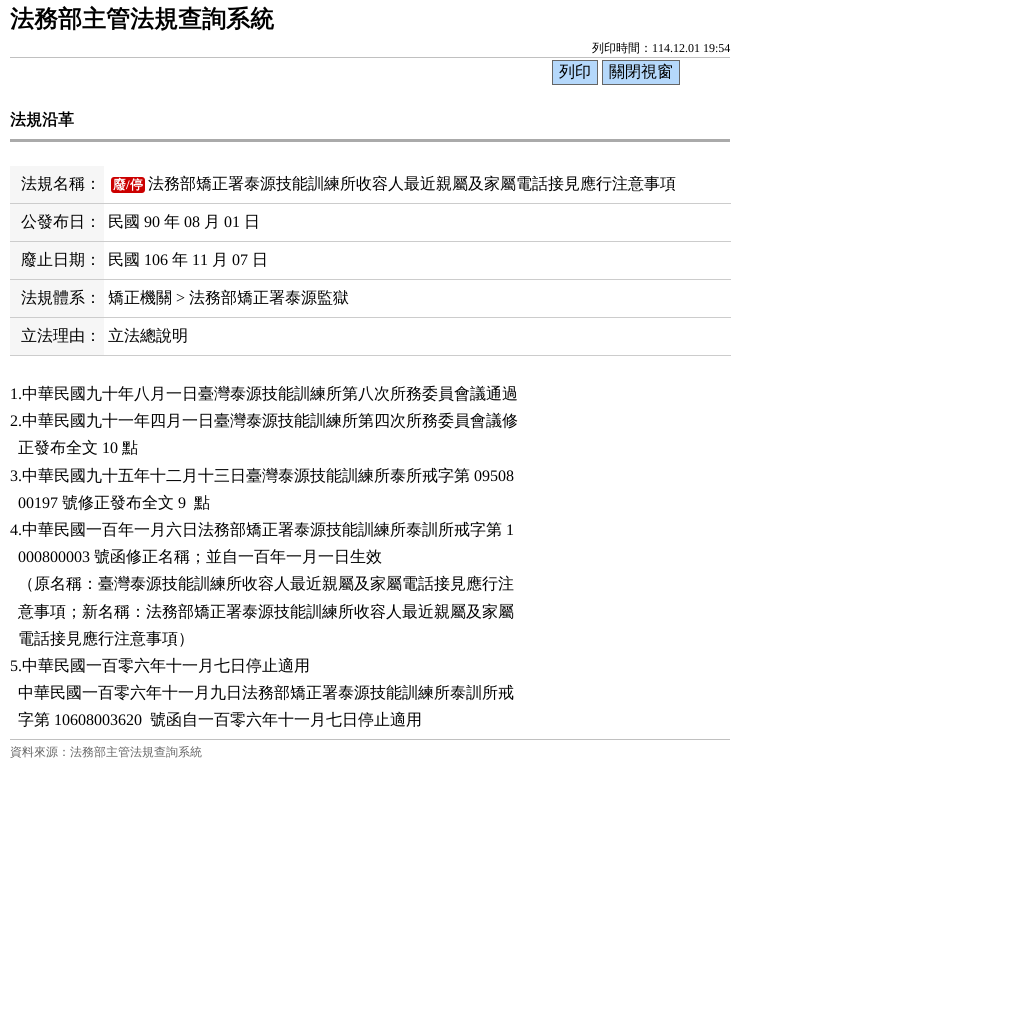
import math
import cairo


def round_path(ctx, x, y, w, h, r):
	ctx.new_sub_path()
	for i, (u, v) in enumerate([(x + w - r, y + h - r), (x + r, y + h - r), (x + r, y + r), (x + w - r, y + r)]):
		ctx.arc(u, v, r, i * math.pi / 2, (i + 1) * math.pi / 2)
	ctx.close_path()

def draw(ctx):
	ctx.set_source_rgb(1, 1, 1)
	ctx.paint()
	ctx.set_source_rgb(0.753, 0.753, 0.753)
	ctx.rectangle(10, 57, 720, 1)
	ctx.fill()
	ctx.select_font_face('WenQuanYi Zen Hei', cairo.FONT_SLANT_NORMAL, cairo.FONT_WEIGHT_BOLD)
	ctx.set_font_size(24)
	ctx.set_source_rgb(0, 0, 0)
	ctx.move_to(10, 27)
	ctx.show_text('法務部主管法規查詢系統')
	ctx.select_font_face('WenQuanYi Zen Hei Medium')
	ctx.set_font_size(12)
	ctx.move_to(592, 52)
	ctx.show_text('列印時間：')
	ctx.select_font_face('Liberation Serif')
	ctx.move_to(652, 52)
	ctx.show_text('114.12.01 19:54')
	ctx.set_source_rgb(0.71, 0.847, 0.984)
	ctx.rectangle(552.5, 60.5, 45, 24)
	ctx.fill_preserve()
	ctx.set_source_rgb(0.4, 0.4, 0.4)
	ctx.set_line_width(1)
	ctx.stroke()
	ctx.select_font_face('WenQuanYi Zen Hei Medium')
	ctx.set_font_size(16)
	ctx.set_source_rgb(0, 0, 0)
	ctx.move_to(559, 77)
	ctx.show_text('列印')
	ctx.set_source_rgb(0.71, 0.847, 0.984)
	ctx.rectangle(602.5, 60.5, 77, 24)
	ctx.fill_preserve()
	ctx.set_source_rgb(0.4, 0.4, 0.4)
	ctx.stroke()
	ctx.set_source_rgb(0, 0, 0)
	ctx.move_to(609, 77)
	ctx.show_text('關閉視窗')
	ctx.set_source_rgb(0.667, 0.667, 0.667)
	ctx.rectangle(10, 139, 720, 3)
	ctx.fill()
	ctx.select_font_face('WenQuanYi Zen Hei', cairo.FONT_SLANT_NORMAL, cairo.FONT_WEIGHT_BOLD)
	ctx.set_source_rgb(0, 0, 0)
	ctx.move_to(10, 125)
	ctx.show_text('法規沿革')
	ctx.set_source_rgb(0.961, 0.961, 0.961)
	ctx.rectangle(10, 166, 94, 37)
	ctx.fill()
	ctx.select_font_face('WenQuanYi Zen Hei Medium')
	ctx.set_source_rgb(0, 0, 0)
	ctx.move_to(21, 189)
	ctx.show_text('法規名稱：')
	ctx.set_source_rgb(0.8, 0.8, 0.8)
	ctx.rectangle(10, 203, 721, 1)
	ctx.fill()
	ctx.set_source_rgb(0.8, 0, 0)
	round_path(ctx, 111, 177, 34, 16, 3)
	ctx.fill()
	ctx.select_font_face('WenQuanYi Zen Hei', cairo.FONT_SLANT_NORMAL, cairo.FONT_WEIGHT_BOLD)
	ctx.set_font_size(13)
	ctx.set_source_rgb(1, 1, 1)
	ctx.move_to(113, 189)
	ctx.show_text('廢')
	ctx.select_font_face('Liberation Serif', cairo.FONT_SLANT_NORMAL, cairo.FONT_WEIGHT_BOLD)
	ctx.move_to(126, 189)
	ctx.show_text('/')
	ctx.select_font_face('WenQuanYi Zen Hei', cairo.FONT_SLANT_NORMAL, cairo.FONT_WEIGHT_BOLD)
	ctx.move_to(130, 189)
	ctx.show_text('停')
	ctx.select_font_face('WenQuanYi Zen Hei Medium')
	ctx.set_font_size(16)
	ctx.set_source_rgb(0, 0, 0)
	ctx.move_to(148, 189)
	ctx.show_text('法務部矯正署泰源技能訓練所收容人最近親屬及家屬電話接見應行注意事項')
	ctx.set_source_rgb(0.961, 0.961, 0.961)
	ctx.rectangle(10, 204, 94, 37)
	ctx.fill()
	ctx.set_source_rgb(0, 0, 0)
	ctx.move_to(21, 227)
	ctx.show_text('公發布日：')
	ctx.set_source_rgb(0.8, 0.8, 0.8)
	ctx.rectangle(10, 241, 721, 1)
	ctx.fill()
	ctx.set_source_rgb(0, 0, 0)
	ctx.move_to(108, 227)
	ctx.show_text('民國')
	ctx.select_font_face('Liberation Serif')
	ctx.move_to(144, 227)
	ctx.show_text('90')
	ctx.select_font_face('WenQuanYi Zen Hei Medium')
	ctx.move_to(164, 227)
	ctx.show_text('年')
	ctx.select_font_face('Liberation Serif')
	ctx.move_to(184, 227)
	ctx.show_text('08')
	ctx.select_font_face('WenQuanYi Zen Hei Medium')
	ctx.move_to(204, 227)
	ctx.show_text('月')
	ctx.select_font_face('Liberation Serif')
	ctx.move_to(224, 227)
	ctx.show_text('01')
	ctx.select_font_face('WenQuanYi Zen Hei Medium')
	ctx.move_to(244, 227)
	ctx.show_text('日')
	ctx.set_source_rgb(0.961, 0.961, 0.961)
	ctx.rectangle(10, 242, 94, 37)
	ctx.fill()
	ctx.set_source_rgb(0, 0, 0)
	ctx.move_to(21, 265)
	ctx.show_text('廢止日期：')
	ctx.set_source_rgb(0.8, 0.8, 0.8)
	ctx.rectangle(10, 279, 721, 1)
	ctx.fill()
	ctx.set_source_rgb(0, 0, 0)
	ctx.move_to(108, 265)
	ctx.show_text('民國')
	ctx.select_font_face('Liberation Serif')
	ctx.move_to(144, 265)
	ctx.show_text('106')
	ctx.select_font_face('WenQuanYi Zen Hei Medium')
	ctx.move_to(172, 265)
	ctx.show_text('年')
	ctx.select_font_face('Liberation Serif')
	ctx.move_to(192, 265)
	ctx.show_text('11')
	ctx.select_font_face('WenQuanYi Zen Hei Medium')
	ctx.move_to(212, 265)
	ctx.show_text('月')
	ctx.select_font_face('Liberation Serif')
	ctx.move_to(232, 265)
	ctx.show_text('07')
	ctx.select_font_face('WenQuanYi Zen Hei Medium')
	ctx.move_to(252, 265)
	ctx.show_text('日')
	ctx.set_source_rgb(0.961, 0.961, 0.961)
	ctx.rectangle(10, 280, 94, 37)
	ctx.fill()
	ctx.set_source_rgb(0, 0, 0)
	ctx.move_to(21, 303)
	ctx.show_text('法規體系：')
	ctx.set_source_rgb(0.8, 0.8, 0.8)
	ctx.rectangle(10, 317, 721, 1)
	ctx.fill()
	ctx.set_source_rgb(0, 0, 0)
	ctx.move_to(108, 303)
	ctx.show_text('矯正機關')
	ctx.select_font_face('Liberation Serif')
	ctx.move_to(176, 303)
	ctx.show_text('>')
	ctx.select_font_face('WenQuanYi Zen Hei Medium')
	ctx.move_to(189, 303)
	ctx.show_text('法務部矯正署泰源監獄')
	ctx.set_source_rgb(0.961, 0.961, 0.961)
	ctx.rectangle(10, 318, 94, 37)
	ctx.fill()
	ctx.set_source_rgb(0, 0, 0)
	ctx.move_to(21, 341)
	ctx.show_text('立法理由：')
	ctx.set_source_rgb(0.8, 0.8, 0.8)
	ctx.rectangle(10, 355, 721, 1)
	ctx.fill()
	ctx.set_source_rgb(0, 0, 0)
	ctx.move_to(108, 341)
	ctx.show_text('立法總說明')
	ctx.select_font_face('Liberation Serif')
	ctx.move_to(10, 399)
	ctx.show_text('1.')
	ctx.select_font_face('WenQuanYi Zen Hei Medium')
	ctx.move_to(22, 399)
	ctx.show_text('中華民國九十年八月一日臺灣泰源技能訓練所第八次所務委員會議通過')
	ctx.select_font_face('Liberation Serif')
	ctx.move_to(10, 426)
	ctx.show_text('2.')
	ctx.select_font_face('WenQuanYi Zen Hei Medium')
	ctx.move_to(22, 426)
	ctx.show_text('中華民國九十一年四月一日臺灣泰源技能訓練所第四次所務委員會議修')
	ctx.move_to(18, 453)
	ctx.show_text('正發布全文')
	ctx.select_font_face('Liberation Serif')
	ctx.move_to(102, 453)
	ctx.show_text('10')
	ctx.select_font_face('WenQuanYi Zen Hei Medium')
	ctx.move_to(122, 453)
	ctx.show_text('點')
	ctx.select_font_face('Liberation Serif')
	ctx.move_to(10, 481)
	ctx.show_text('3.')
	ctx.select_font_face('WenQuanYi Zen Hei Medium')
	ctx.move_to(22, 481)
	ctx.show_text('中華民國九十五年十二月十三日臺灣泰源技能訓練所泰所戒字第')
	ctx.select_font_face('Liberation Serif')
	ctx.move_to(474, 481)
	ctx.show_text('09508')
	ctx.move_to(18, 508)
	ctx.show_text('00197')
	ctx.select_font_face('WenQuanYi Zen Hei Medium')
	ctx.move_to(62, 508)
	ctx.show_text('號修正發布全文')
	ctx.select_font_face('Liberation Serif')
	ctx.move_to(178, 508)
	ctx.show_text('9')
	ctx.select_font_face('WenQuanYi Zen Hei Medium')
	ctx.move_to(194, 508)
	ctx.show_text('點')
	ctx.select_font_face('Liberation Serif')
	ctx.move_to(10, 535)
	ctx.show_text('4.')
	ctx.select_font_face('WenQuanYi Zen Hei Medium')
	ctx.move_to(22, 535)
	ctx.show_text('中華民國一百年一月六日法務部矯正署泰源技能訓練所泰訓所戒字第')
	ctx.select_font_face('Liberation Serif')
	ctx.move_to(506, 535)
	ctx.show_text('1')
	ctx.move_to(18, 562)
	ctx.show_text('000800003')
	ctx.select_font_face('WenQuanYi Zen Hei Medium')
	for x, y, s in [
		(94, 562, '號函修正名稱；並自一百年一月一日生效'),
		(18, 589, '（原名稱：臺灣泰源技能訓練所收容人最近親屬及家屬電話接見應行注'),
		(18, 617, '意事項；新名稱：法務部矯正署泰源技能訓練所收容人最近親屬及家屬'),
		(18, 644, '電話接見應行注意事項）'),
	]:
		ctx.move_to(x, y)
		ctx.show_text(s)
	ctx.select_font_face('Liberation Serif')
	ctx.move_to(10, 671)
	ctx.show_text('5.')
	ctx.select_font_face('WenQuanYi Zen Hei Medium')
	for x, y, s in [
		(22, 671, '中華民國一百零六年十一月七日停止適用'),
		(18, 698, '中華民國一百零六年十一月九日法務部矯正署泰源技能訓練所泰訓所戒'),
		(18, 725, '字第'),
	]:
		ctx.move_to(x, y)
		ctx.show_text(s)
	ctx.select_font_face('Liberation Serif')
	ctx.move_to(54, 725)
	ctx.show_text('10608003620')
	ctx.select_font_face('WenQuanYi Zen Hei Medium')
	ctx.move_to(150, 725)
	ctx.show_text('號函自一百零六年十一月七日停止適用')
	ctx.set_source_rgb(0.753, 0.753, 0.753)
	ctx.rectangle(10, 739, 720, 1)
	ctx.fill()
	ctx.set_font_size(12)
	ctx.set_source_rgb(0.4, 0.4, 0.4)
	ctx.move_to(10, 756)
	ctx.show_text('資料來源：法務部主管法規查詢系統')


surface = cairo.ImageSurface(cairo.FORMAT_RGB24, 1013, 1021)
ctx = cairo.Context(surface)
options = cairo.FontOptions()
options.set_hint_metrics(cairo.HINT_METRICS_OFF)
options.set_hint_style(cairo.HINT_STYLE_NONE)
ctx.set_font_options(options)
ctx.set_miter_limit(4)
draw(ctx)
surface.write_to_png('image.png')
